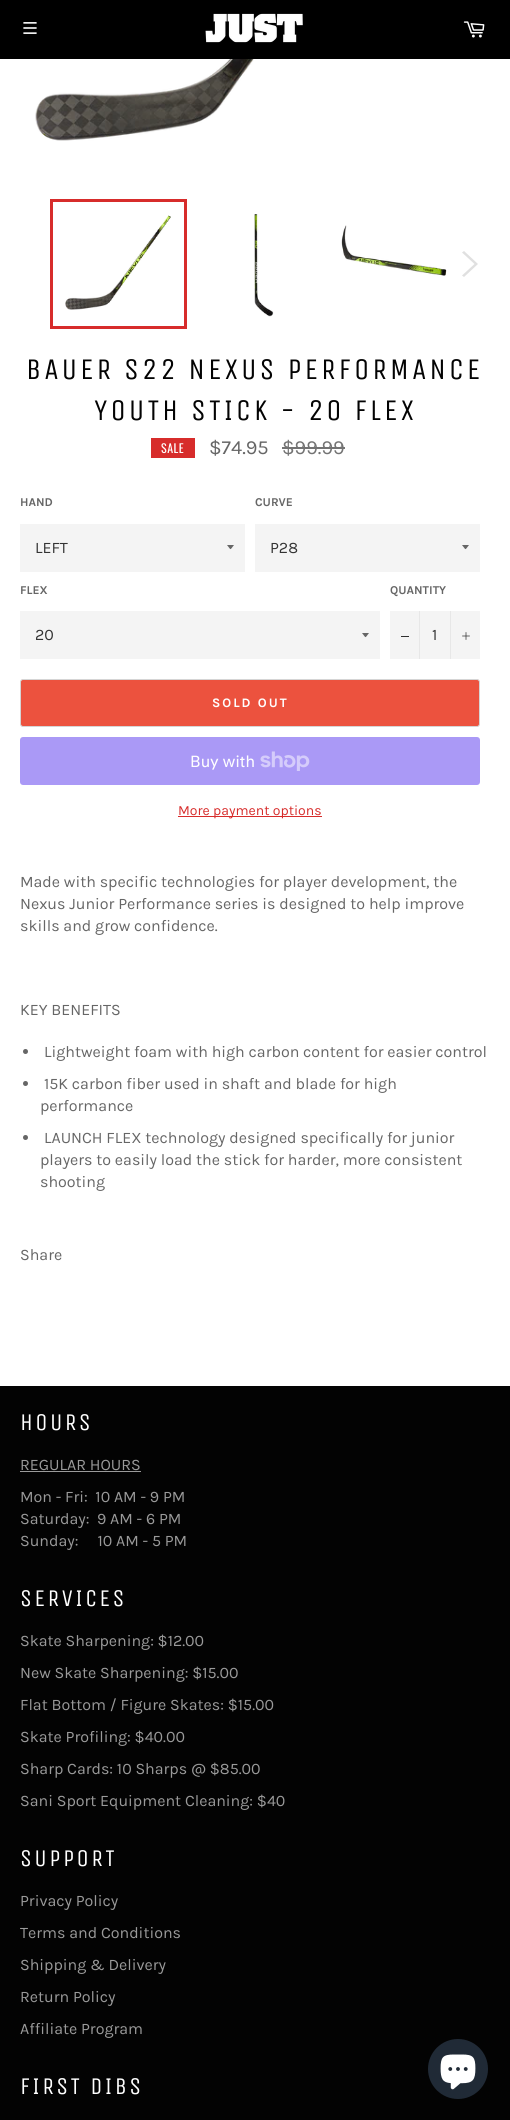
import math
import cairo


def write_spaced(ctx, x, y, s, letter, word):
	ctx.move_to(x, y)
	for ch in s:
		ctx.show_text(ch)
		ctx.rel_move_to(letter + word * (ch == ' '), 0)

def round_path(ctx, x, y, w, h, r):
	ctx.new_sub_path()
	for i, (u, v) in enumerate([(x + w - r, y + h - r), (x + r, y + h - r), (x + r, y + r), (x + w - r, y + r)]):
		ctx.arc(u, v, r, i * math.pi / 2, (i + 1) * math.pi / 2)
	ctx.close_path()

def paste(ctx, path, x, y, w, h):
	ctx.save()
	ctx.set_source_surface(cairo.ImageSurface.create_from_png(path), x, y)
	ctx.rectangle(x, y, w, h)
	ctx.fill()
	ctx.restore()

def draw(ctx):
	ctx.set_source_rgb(1, 1, 1)
	ctx.paint()
	ctx.set_source_rgb(0, 0, 0)
	ctx.rectangle(0, 0, 510, 59)
	ctx.fill()
	paste(ctx, 'media/1.png', 205, 13, 98, 30)
	paste(ctx, 'media/2.png', 23, 22, 14, 12)
	paste(ctx, 'media/3.png', 463, 21, 22, 17)
	paste(ctx, 'media/4.png', 35, 59, 219, 82)
	paste(ctx, 'media/5.png', 65, 215, 106, 95)
	ctx.rectangle(51.5, 200.5, 134, 127)
	ctx.set_source_rgb(0.843, 0.173, 0.169)
	ctx.set_line_width(3)
	ctx.stroke()
	paste(ctx, 'media/6.png', 254, 214, 20, 103)
	paste(ctx, 'media/7.png', 341, 225, 106, 51)
	ctx.set_source_rgb(0.878, 0.878, 0.878)
	ctx.new_path()
	ctx.move_to(462, 252.5)
	ctx.line_to(464, 251)
	ctx.line_to(478, 264)
	ctx.line_to(464, 277)
	ctx.line_to(462, 275.5)
	ctx.line_to(474.5, 264)
	ctx.close_path()
	ctx.fill()
	ctx.select_font_face('Unica One')
	ctx.set_font_size(30)
	ctx.set_source_rgb(0.012, 0.012, 0.012)
	write_spaced(ctx, 26, 379, 'BAUER S22 NEXUS PERFORMANCE', 3, 0)
	write_spaced(ctx, 94, 420, 'YOUTH STICK - 20 FLEX', 3, 0)
	ctx.set_source_rgb(0.843, 0.173, 0.169)
	ctx.rectangle(151, 438, 44, 20)
	ctx.fill()
	ctx.select_font_face('Oswald')
	ctx.set_font_size(12)
	ctx.set_source_rgb(1, 1, 1)
	write_spaced(ctx, 161, 453, 'SALE', 0.5, 0)
	ctx.select_font_face('Karla')
	ctx.set_font_size(20)
	ctx.set_source_rgb(0.4, 0.4, 0.4)
	ctx.move_to(209, 454)
	ctx.show_text('$74.95')
	ctx.set_source_rgb(0.451, 0.451, 0.451)
	ctx.move_to(282, 454)
	ctx.show_text('$99.99')
	ctx.rectangle(282, 447, 63, 2)
	ctx.fill()
	ctx.select_font_face('Karla', cairo.FONT_SLANT_NORMAL, cairo.FONT_WEIGHT_BOLD)
	ctx.set_font_size(12)
	ctx.set_source_rgb(0.4, 0.4, 0.4)
	ctx.move_to(20, 506)
	ctx.show_text('HAND')
	ctx.set_source_rgb(0.957, 0.957, 0.957)
	ctx.rectangle(20, 524, 225, 48)
	ctx.fill()
	ctx.set_source_rgb(0.4, 0.4, 0.4)
	ctx.new_path()
	ctx.move_to(227, 545)
	ctx.curve_to(231.5, 550.5, 229.5, 550.5, 234, 545)
	ctx.close_path()
	ctx.fill()
	ctx.select_font_face('Karla')
	ctx.set_font_size(16)
	ctx.set_source_rgb(0.2, 0.2, 0.2)
	ctx.move_to(35, 553)
	ctx.show_text('LEFT')
	ctx.select_font_face('Karla', cairo.FONT_SLANT_NORMAL, cairo.FONT_WEIGHT_BOLD)
	ctx.set_font_size(12)
	ctx.set_source_rgb(0.4, 0.4, 0.4)
	ctx.move_to(255, 506)
	ctx.show_text('CURVE')
	ctx.set_source_rgb(0.957, 0.957, 0.957)
	ctx.rectangle(255, 524, 225, 48)
	ctx.fill()
	ctx.set_source_rgb(0.4, 0.4, 0.4)
	ctx.new_path()
	ctx.move_to(462, 545)
	ctx.curve_to(466.5, 550.5, 464.5, 550.5, 469, 545)
	ctx.close_path()
	ctx.fill()
	ctx.select_font_face('Karla')
	ctx.set_font_size(16)
	ctx.set_source_rgb(0.2, 0.2, 0.2)
	ctx.move_to(270, 553)
	ctx.show_text('P28')
	ctx.select_font_face('Karla', cairo.FONT_SLANT_NORMAL, cairo.FONT_WEIGHT_BOLD)
	ctx.set_font_size(12)
	ctx.set_source_rgb(0.4, 0.4, 0.4)
	ctx.move_to(20, 594)
	ctx.show_text('FLEX')
	ctx.set_source_rgb(0.957, 0.957, 0.957)
	ctx.rectangle(20, 611, 360, 48)
	ctx.fill()
	ctx.set_source_rgb(0.4, 0.4, 0.4)
	ctx.new_path()
	ctx.move_to(362, 633)
	ctx.curve_to(366.5, 638.5, 364.5, 638.5, 369, 633)
	ctx.close_path()
	ctx.fill()
	ctx.select_font_face('Karla')
	ctx.set_font_size(16)
	ctx.set_source_rgb(0.2, 0.2, 0.2)
	ctx.move_to(35, 640)
	ctx.show_text('20')
	ctx.select_font_face('Karla', cairo.FONT_SLANT_NORMAL, cairo.FONT_WEIGHT_BOLD)
	ctx.set_font_size(12)
	ctx.set_source_rgb(0.4, 0.4, 0.4)
	ctx.move_to(390, 594)
	ctx.show_text('QUANTITY')
	ctx.set_source_rgb(0.957, 0.957, 0.957)
	ctx.rectangle(390, 611, 90, 48)
	ctx.fill()
	ctx.set_source_rgb(0.906, 0.906, 0.906)
	ctx.rectangle(419, 611, 1, 48)
	ctx.fill()
	ctx.set_source_rgb(0.188, 0.188, 0.188)
	ctx.rectangle(401, 636, 8, 1)
	ctx.fill()
	ctx.select_font_face('Karla')
	ctx.set_font_size(16)
	ctx.set_source_rgb(0.2, 0.2, 0.2)
	ctx.move_to(432, 640)
	ctx.show_text('1')
	ctx.set_source_rgb(0.906, 0.906, 0.906)
	ctx.rectangle(450, 611, 1, 48)
	ctx.fill()
	paste(ctx, 'media/8.png', 462, 632, 8, 8)
	ctx.set_source_rgb(0.925, 0.322, 0.243)
	round_path(ctx, 20.5, 679.5, 459, 47, 2.5)
	ctx.fill_preserve()
	ctx.set_source_rgb(0.835, 0.835, 0.835)
	ctx.set_line_width(1)
	ctx.stroke()
	ctx.select_font_face('Karla', cairo.FONT_SLANT_NORMAL, cairo.FONT_WEIGHT_BOLD)
	ctx.set_font_size(13)
	ctx.set_source_rgb(1, 1, 1)
	write_spaced(ctx, 212, 707, 'SOLD OUT', 2, 0)
	ctx.set_source_rgb(0.667, 0.6, 0.961)
	round_path(ctx, 20, 737, 460, 48, 3)
	ctx.fill()
	ctx.select_font_face('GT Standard')
	ctx.set_font_size(16)
	ctx.set_source_rgb(1, 1, 1)
	ctx.move_to(190, 767)
	ctx.show_text('Buy with')
	paste(ctx, 'media/9.png', 260, 751, 50, 20)
	ctx.set_source_rgb(0.843, 0.173, 0.169)
	ctx.rectangle(178, 816, 144, 1)
	ctx.fill()
	ctx.select_font_face('Karla')
	ctx.set_font_size(14)
	ctx.move_to(178, 815)
	ctx.show_text('More payment options')
	ctx.set_font_size(16)
	ctx.set_source_rgb(0.4, 0.4, 0.4)
	for x, y, s in [
		(20, 887, 'Made with specific technologies for player development, the'),
		(20, 909, 'Nexus Junior Performance series is designed to help improve'),
		(20, 931, 'skills and grow confidence.'),
		(20, 1015, 'KEY BENEFITS'),
	]:
		ctx.move_to(x, y)
		ctx.show_text(s)
	ctx.new_path()
	ctx.arc(25.5, 1051.5, 2.5, 0, 2 * math.pi)
	ctx.fill()
	ctx.move_to(44, 1057)
	ctx.show_text('Lightweight foam with high carbon content for easier control')
	ctx.new_path()
	ctx.arc(25.5, 1083.5, 2.5, 0, 2 * math.pi)
	ctx.fill()
	ctx.move_to(44, 1089)
	ctx.show_text('15K carbon fiber used in shaft and blade for high')
	ctx.move_to(40, 1111)
	ctx.show_text('performance')
	ctx.new_path()
	ctx.arc(25.5, 1137.5, 2.5, 0, 2 * math.pi)
	ctx.fill()
	for x, y, s in [
		(44, 1143, 'LAUNCH FLEX technology designed specifically for junior'),
		(40, 1165, 'players to easily load the stick for harder, more consistent'),
		(40, 1187, 'shooting'),
		(20, 1260, 'Share'),
	]:
		ctx.move_to(x, y)
		ctx.show_text(s)
	ctx.set_source_rgb(0.012, 0.012, 0.012)
	ctx.rectangle(0, 1386, 510, 734)
	ctx.fill()
	ctx.select_font_face('Unica One')
	ctx.set_font_size(24)
	ctx.set_source_rgb(1, 1, 1)
	write_spaced(ctx, 20, 1430, 'HOURS', 2.4, 0)
	ctx.select_font_face('Karla')
	ctx.set_font_size(16)
	ctx.set_source_rgb(0.604, 0.604, 0.604)
	ctx.move_to(20, 1470)
	ctx.show_text('REGULAR HOURS')
	ctx.rectangle(20, 1471, 121, 1)
	ctx.fill()
	for x, y, s in [
		(20, 1502, 'Mon - Fri:  10 AM - 9 PM'),
		(20, 1524, 'Saturday:  9 AM - 6 PM'),
		(20, 1546, 'Sunday:     10 AM - 5 PM'),
	]:
		ctx.move_to(x, y)
		ctx.show_text(s)
	ctx.select_font_face('Unica One')
	ctx.set_font_size(24)
	ctx.set_source_rgb(1, 1, 1)
	write_spaced(ctx, 20, 1606, 'SERVICES', 2.4, 0)
	ctx.select_font_face('Karla')
	ctx.set_font_size(16)
	ctx.set_source_rgb(0.604, 0.604, 0.604)
	for x, y, s in [
		(20, 1646, 'Skate Sharpening: $12.00'),
		(20, 1678, 'New Skate Sharpening: $15.00'),
		(20, 1710, 'Flat Bottom / Figure Skates: $15.00'),
		(20, 1742, 'Skate Profiling: $40.00'),
		(20, 1774, 'Sharp Cards: 10 Sharps @ $85.00'),
		(20, 1806, 'Sani Sport Equipment Cleaning: $40'),
	]:
		ctx.move_to(x, y)
		ctx.show_text(s)
	ctx.select_font_face('Unica One')
	ctx.set_font_size(24)
	ctx.set_source_rgb(1, 1, 1)
	write_spaced(ctx, 20, 1866, 'SUPPORT', 2.4, 0)
	ctx.select_font_face('Karla')
	ctx.set_font_size(16)
	ctx.set_source_rgb(0.604, 0.604, 0.604)
	for x, y, s in [
		(20, 1906, 'Privacy Policy'),
		(20, 1938, 'Terms and Conditions'),
		(20, 1970, 'Shipping & Delivery'),
		(20, 2002, 'Return Policy'),
		(20, 2034, 'Affiliate Program'),
	]:
		ctx.move_to(x, y)
		ctx.show_text(s)
	ctx.select_font_face('Unica One')
	ctx.set_font_size(24)
	ctx.set_source_rgb(1, 1, 1)
	write_spaced(ctx, 20, 2094, 'FIRST DIBS', 2.4, 0)
	ctx.set_source_rgb(0.125, 0.165, 0.212)
	ctx.new_path()
	ctx.arc(458, 2069, 30, 0, 2 * math.pi)
	ctx.fill()
	paste(ctx, 'media/10.png', 440, 2054, 36, 36)


surface = cairo.ImageSurface(cairo.FORMAT_RGB24, 510, 2120)
ctx = cairo.Context(surface)
options = cairo.FontOptions()
options.set_hint_metrics(cairo.HINT_METRICS_OFF)
options.set_hint_style(cairo.HINT_STYLE_NONE)
ctx.set_font_options(options)
ctx.set_miter_limit(4)
draw(ctx)
surface.write_to_png('image.png')
